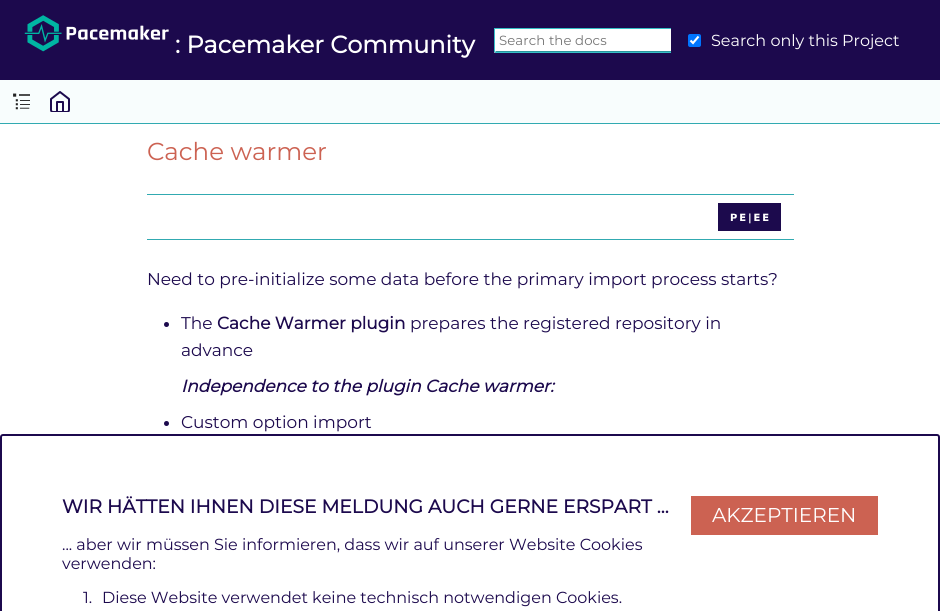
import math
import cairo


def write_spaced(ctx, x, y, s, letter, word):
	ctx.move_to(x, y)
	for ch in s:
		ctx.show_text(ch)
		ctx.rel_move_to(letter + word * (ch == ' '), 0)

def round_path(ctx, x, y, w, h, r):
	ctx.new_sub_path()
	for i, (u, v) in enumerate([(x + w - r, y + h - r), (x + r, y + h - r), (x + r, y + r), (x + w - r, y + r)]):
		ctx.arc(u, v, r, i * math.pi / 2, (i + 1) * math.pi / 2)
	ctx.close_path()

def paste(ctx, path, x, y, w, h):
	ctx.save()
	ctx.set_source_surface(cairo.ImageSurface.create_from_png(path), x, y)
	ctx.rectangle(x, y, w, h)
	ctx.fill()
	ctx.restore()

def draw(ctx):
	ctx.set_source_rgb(1, 1, 1)
	ctx.paint()
	ctx.set_source_rgb(0.11, 0.039, 0.302)
	ctx.rectangle(0, 0, 940, 80)
	ctx.fill()
	paste(ctx, 'media/1.png', 24, 15, 145, 37)
	ctx.select_font_face('Montserrat', cairo.FONT_SLANT_NORMAL, cairo.FONT_WEIGHT_BOLD)
	ctx.set_font_size(24)
	ctx.set_source_rgb(1, 1, 1)
	ctx.move_to(175, 53)
	ctx.show_text(': Pacemaker Community')
	ctx.new_path()
	ctx.move_to(495.5, 28)
	ctx.line_to(671, 28)
	ctx.line_to(671, 53)
	ctx.line_to(495.5, 53)
	ctx.curve_to(494.5, 53, 494, 52.5, 494, 51.5)
	ctx.line_to(494, 29.5)
	ctx.curve_to(494, 28.5, 494.5, 28, 495.5, 28)
	ctx.close_path()
	ctx.fill()
	ctx.set_source_rgb(0.169, 0.584, 0.608)
	ctx.new_path()
	ctx.move_to(495, 51)
	ctx.line_to(496, 52)
	ctx.line_to(671, 52)
	ctx.line_to(671, 51)
	ctx.close_path()
	ctx.fill()
	ctx.set_source_rgb(0.216, 0.749, 0.78)
	ctx.rectangle(495, 28, 176, 1)
	ctx.rectangle(495, 52, 176, 1)
	ctx.rectangle(494, 28, 1, 24)
	ctx.fill()
	ctx.select_font_face('Montserrat Thin')
	ctx.set_font_size(13.25)
	ctx.set_source_rgb(0.459, 0.459, 0.459)
	write_spaced(ctx, 499, 45, 'Search the docs', 0.1, 0)
	ctx.set_source_rgb(0, 0.459, 1)
	round_path(ctx, 688, 34, 13, 13, 2)
	ctx.fill()
	ctx.new_path()
	ctx.move_to(690.5, 40.5)
	ctx.line_to(693, 43)
	ctx.line_to(698.5, 36.5)
	ctx.set_source_rgb(1, 1, 1)
	ctx.set_line_width(2.1)
	ctx.stroke()
	ctx.set_font_size(16)
	ctx.move_to(711, 46)
	ctx.show_text('Search only this Project')
	ctx.set_source_rgb(0.192, 0.667, 0.694)
	ctx.rectangle(0, 123, 940, 1)
	ctx.fill()
	ctx.set_source_rgb(0.969, 0.992, 0.992)
	ctx.rectangle(0, 80, 940, 43)
	ctx.fill()
	paste(ctx, 'media/2.png', 13, 93, 17, 17)
	paste(ctx, 'media/3.png', 50, 91, 20, 21)
	ctx.set_font_size(24.5)
	ctx.set_source_rgb(0.8, 0.384, 0.322)
	ctx.move_to(147, 160)
	ctx.show_text('Cache warmer')
	ctx.set_source_rgb(0.192, 0.667, 0.694)
	ctx.rectangle(147, 194, 647, 1)
	ctx.fill()
	ctx.rectangle(147, 239, 647, 1)
	ctx.fill()
	paste(ctx, 'media/4.png', 718, 203, 63, 28)
	ctx.set_font_size(17)
	ctx.set_source_rgb(0.11, 0.039, 0.302)
	ctx.move_to(147, 285)
	ctx.show_text('Need to pre-initialize some data before the primary import process starts?')
	ctx.new_path()
	ctx.arc(166.5, 324.5, 2.5, 0, 2 * math.pi)
	ctx.fill()
	ctx.move_to(181, 329)
	ctx.show_text('The')
	ctx.select_font_face('Montserrat', cairo.FONT_SLANT_NORMAL, cairo.FONT_WEIGHT_BOLD)
	ctx.move_to(217, 329)
	ctx.show_text('Cache Warmer plugin')
	ctx.select_font_face('Montserrat Thin')
	ctx.move_to(410, 329)
	ctx.show_text('prepares the registered repository in')
	ctx.move_to(181, 356)
	ctx.show_text('advance')
	ctx.select_font_face('Montserrat', cairo.FONT_SLANT_ITALIC, cairo.FONT_WEIGHT_BOLD)
	ctx.move_to(181, 392)
	ctx.show_text('Independence to the plugin Cache warmer:')
	ctx.new_path()
	ctx.arc(166.5, 423.5, 2.5, 0, 2 * math.pi)
	ctx.fill()
	ctx.select_font_face('Montserrat Thin')
	ctx.move_to(181, 428)
	ctx.show_text('Custom option import')
	round_path(ctx, 1, 435, 938, 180, 2)
	ctx.set_line_width(2)
	ctx.stroke()
	ctx.select_font_face('Montserrat', cairo.FONT_SLANT_NORMAL, cairo.FONT_WEIGHT_BOLD)
	ctx.set_font_size(18.75)
	ctx.move_to(62, 513)
	ctx.show_text('WIR HÄTTEN IHNEN DIESE MELDUNG AUCH GERNE ERSPART ...')
	ctx.select_font_face('Montserrat Thin')
	ctx.set_font_size(16)
	for x, y, s in [
		(62, 550, '... aber wir müssen Sie informieren, dass wir auf unserer Website Cookies'),
		(62, 569, 'verwenden:'),
		(83, 603, '1.'),
		(102, 603, 'Diese Website verwendet keine technisch notwendigen Cookies.'),
	]:
		ctx.move_to(x, y)
		ctx.show_text(s)
	ctx.set_source_rgb(0.8, 0.384, 0.322)
	ctx.rectangle(691, 496, 187, 39)
	ctx.fill()
	ctx.set_font_size(20)
	ctx.set_source_rgb(1, 1, 1)
	ctx.move_to(712, 522)
	ctx.show_text('AKZEPTIEREN')


surface = cairo.ImageSurface(cairo.FORMAT_RGB24, 940, 611)
ctx = cairo.Context(surface)
options = cairo.FontOptions()
options.set_hint_metrics(cairo.HINT_METRICS_OFF)
options.set_hint_style(cairo.HINT_STYLE_NONE)
ctx.set_font_options(options)
ctx.set_miter_limit(4)
draw(ctx)
surface.write_to_png('image.png')
